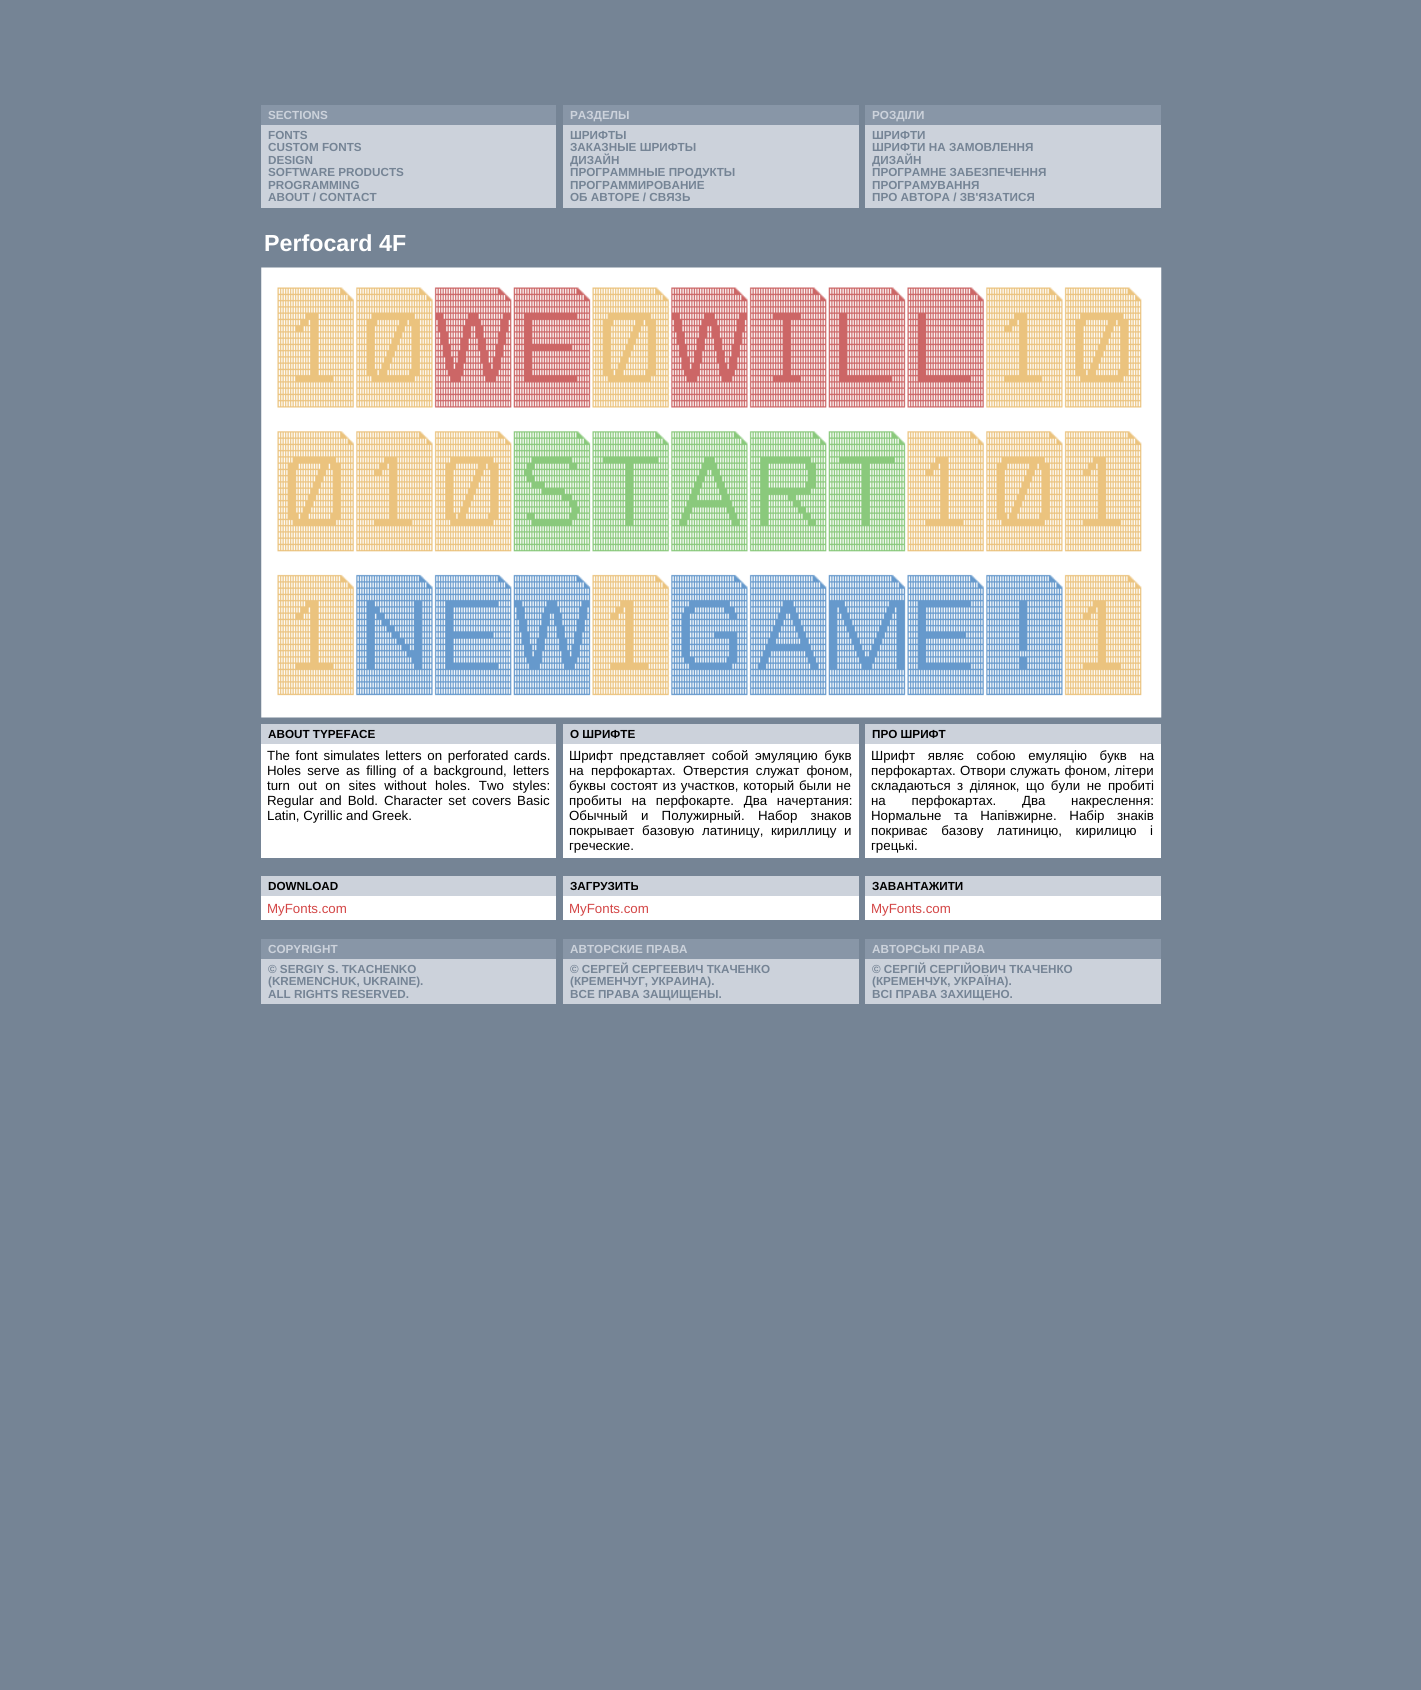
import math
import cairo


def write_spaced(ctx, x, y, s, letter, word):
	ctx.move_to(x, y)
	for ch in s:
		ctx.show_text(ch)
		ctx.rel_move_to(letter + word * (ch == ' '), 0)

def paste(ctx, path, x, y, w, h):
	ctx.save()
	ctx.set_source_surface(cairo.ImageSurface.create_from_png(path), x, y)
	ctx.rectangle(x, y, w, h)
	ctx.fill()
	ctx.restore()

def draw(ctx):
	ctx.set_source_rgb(0.459, 0.518, 0.584)
	ctx.paint()
	ctx.set_source_rgb(0.533, 0.588, 0.655)
	ctx.rectangle(261, 105, 295, 20)
	ctx.fill()
	ctx.select_font_face('Liberation Sans', cairo.FONT_SLANT_NORMAL, cairo.FONT_WEIGHT_BOLD)
	ctx.set_font_size(11.7)
	ctx.set_source_rgb(0.8, 0.824, 0.859)
	ctx.move_to(268, 119)
	ctx.show_text('SECTIONS')
	ctx.rectangle(261, 125, 295, 83)
	ctx.fill()
	ctx.set_source_rgb(0.459, 0.518, 0.584)
	for x, y, s in [
		(268, 139, 'FONTS'),
		(268, 151, 'CUSTOM FONTS'),
		(268, 164, 'DESIGN'),
		(268, 176, 'SOFTWARE PRODUCTS'),
		(268, 189, 'PROGRAMMING'),
		(268, 201, 'ABOUT / CONTACT'),
	]:
		ctx.move_to(x, y)
		ctx.show_text(s)
	ctx.set_source_rgb(0.533, 0.588, 0.655)
	ctx.rectangle(563, 105, 296, 20)
	ctx.fill()
	ctx.set_source_rgb(0.8, 0.824, 0.859)
	ctx.move_to(570, 119)
	ctx.show_text('РАЗДЕЛЫ')
	ctx.rectangle(563, 125, 296, 83)
	ctx.fill()
	ctx.set_source_rgb(0.459, 0.518, 0.584)
	for x, y, s in [
		(570, 139, 'ШРИФТЫ'),
		(570, 151, 'ЗАКАЗНЫЕ ШРИФТЫ'),
		(570, 164, 'ДИЗАЙН'),
		(570, 176, 'ПРОГРАММНЫЕ ПРОДУКТЫ'),
		(570, 189, 'ПРОГРАММИРОВАНИЕ'),
		(570, 201, 'ОБ АВТОРЕ / СВЯЗЬ'),
	]:
		ctx.move_to(x, y)
		ctx.show_text(s)
	ctx.set_source_rgb(0.533, 0.588, 0.655)
	ctx.rectangle(865, 105, 296, 20)
	ctx.fill()
	ctx.set_source_rgb(0.8, 0.824, 0.859)
	ctx.move_to(872, 119)
	ctx.show_text('РОЗДІЛИ')
	ctx.rectangle(865, 125, 296, 83)
	ctx.fill()
	ctx.set_source_rgb(0.459, 0.518, 0.584)
	for x, y, s in [
		(872, 139, 'ШРИФТИ'),
		(872, 151, 'ШРИФТИ НА ЗАМОВЛЕННЯ'),
		(872, 164, 'ДИЗАЙН'),
		(872, 176, 'ПРОГРАМНЕ ЗАБЕЗПЕЧЕННЯ'),
		(872, 189, 'ПРОГРАМУВАННЯ'),
		(872, 201, 'ПРО АВТОРА / ЗВ\'ЯЗАТИСЯ'),
	]:
		ctx.move_to(x, y)
		ctx.show_text(s)
	ctx.set_font_size(23.25)
	ctx.set_source_rgb(1, 1, 1)
	ctx.move_to(264, 251)
	ctx.show_text('Perfocard 4F')
	paste(ctx, 'media/1.png', 261, 267, 901, 451)
	ctx.rectangle(261, 744, 900, 114)
	ctx.fill()
	ctx.set_source_rgb(0.8, 0.824, 0.859)
	ctx.rectangle(261, 724, 295, 20)
	ctx.fill()
	ctx.set_font_size(11.7)
	ctx.set_source_rgb(0, 0, 0)
	ctx.move_to(268, 738)
	ctx.show_text('ABOUT TYPEFACE')
	ctx.select_font_face('Liberation Sans')
	ctx.set_font_size(13.3)
	write_spaced(ctx, 267, 760, 'The font simulates letters on perforated cards.', 0, 2)
	write_spaced(ctx, 267, 775, 'Holes serve as filling of a background, letters', 0, 2.5)
	write_spaced(ctx, 267, 790, 'turn out on sites without holes. Two styles:', 0, 4.75)
	write_spaced(ctx, 267, 805, 'Regular and Bold. Character set covers Basic', 0, 2.25)
	ctx.move_to(267, 820)
	ctx.show_text('Latin, Cyrillic and Greek.')
	ctx.set_source_rgb(0.459, 0.518, 0.584)
	ctx.rectangle(556, 744, 7, 114)
	ctx.fill()
	ctx.set_source_rgb(0.8, 0.824, 0.859)
	ctx.rectangle(563, 724, 296, 20)
	ctx.fill()
	ctx.select_font_face('Liberation Sans', cairo.FONT_SLANT_NORMAL, cairo.FONT_WEIGHT_BOLD)
	ctx.set_font_size(11.7)
	ctx.set_source_rgb(0, 0, 0)
	ctx.move_to(570, 738)
	ctx.show_text('О ШРИФТЕ')
	ctx.select_font_face('Liberation Sans')
	ctx.set_font_size(13.3)
	write_spaced(ctx, 569, 760, 'Шрифт представляет собой эмуляцию букв', 0, 3)
	write_spaced(ctx, 569, 775, 'на перфокартах. Отверстия служат фоном,', 0, 3.5)
	write_spaced(ctx, 569, 790, 'буквы состоят из участков, который были не', 0, 1)
	write_spaced(ctx, 569, 805, 'пробиты на перфокарте. Два начертания:', 0, 6)
	write_spaced(ctx, 569, 820, 'Обычный и Полужирный. Набор знаков', 0, 9.5)
	write_spaced(ctx, 569, 835, 'покрывает базовую латиницу, кириллицу и', 0, 4)
	ctx.move_to(569, 850)
	ctx.show_text('греческие.')
	ctx.set_source_rgb(0.459, 0.518, 0.584)
	ctx.rectangle(859, 744, 6, 114)
	ctx.fill()
	ctx.set_source_rgb(0.8, 0.824, 0.859)
	ctx.rectangle(865, 724, 296, 20)
	ctx.fill()
	ctx.select_font_face('Liberation Sans', cairo.FONT_SLANT_NORMAL, cairo.FONT_WEIGHT_BOLD)
	ctx.set_font_size(11.7)
	ctx.set_source_rgb(0, 0, 0)
	ctx.move_to(872, 738)
	ctx.show_text('ПРО ШРИФТ')
	ctx.select_font_face('Liberation Sans')
	ctx.set_font_size(13.3)
	write_spaced(ctx, 871, 760, 'Шрифт являє собою емуляцію букв на', 0, 9)
	write_spaced(ctx, 871, 775, 'перфокартах. Отвори служать фоном, літери', 0, 0.5)
	write_spaced(ctx, 871, 790, 'складаються з ділянок, що були не пробиті', 0, 2.75)
	write_spaced(ctx, 871, 805, 'на перфокартах. Два накреслення:', 0, 22)
	write_spaced(ctx, 871, 820, 'Нормальне та Напівжирне. Набір знаків', 0, 9)
	write_spaced(ctx, 871, 835, 'покриває базову латиницю, кирилицю і', 0, 10)
	ctx.move_to(871, 850)
	ctx.show_text('грецькі.')
	ctx.set_source_rgb(1, 1, 1)
	ctx.rectangle(261, 896, 900, 24)
	ctx.fill()
	ctx.set_source_rgb(0.8, 0.824, 0.859)
	ctx.rectangle(261, 876, 295, 20)
	ctx.fill()
	ctx.select_font_face('Liberation Sans', cairo.FONT_SLANT_NORMAL, cairo.FONT_WEIGHT_BOLD)
	ctx.set_font_size(11.7)
	ctx.set_source_rgb(0, 0, 0)
	ctx.move_to(268, 890)
	ctx.show_text('DOWNLOAD')
	ctx.select_font_face('Liberation Sans')
	ctx.set_font_size(13.3)
	ctx.set_source_rgb(0.827, 0.271, 0.271)
	ctx.move_to(267, 913)
	ctx.show_text('MyFonts.com')
	ctx.set_source_rgb(0.459, 0.518, 0.584)
	ctx.rectangle(556, 896, 7, 24)
	ctx.fill()
	ctx.set_source_rgb(0.8, 0.824, 0.859)
	ctx.rectangle(563, 876, 296, 20)
	ctx.fill()
	ctx.select_font_face('Liberation Sans', cairo.FONT_SLANT_NORMAL, cairo.FONT_WEIGHT_BOLD)
	ctx.set_font_size(11.7)
	ctx.set_source_rgb(0, 0, 0)
	ctx.move_to(570, 890)
	ctx.show_text('ЗАГРУЗИТЬ')
	ctx.select_font_face('Liberation Sans')
	ctx.set_font_size(13.3)
	ctx.set_source_rgb(0.827, 0.271, 0.271)
	ctx.move_to(569, 913)
	ctx.show_text('MyFonts.com')
	ctx.set_source_rgb(0.459, 0.518, 0.584)
	ctx.rectangle(859, 896, 6, 24)
	ctx.fill()
	ctx.set_source_rgb(0.8, 0.824, 0.859)
	ctx.rectangle(865, 876, 296, 20)
	ctx.fill()
	ctx.select_font_face('Liberation Sans', cairo.FONT_SLANT_NORMAL, cairo.FONT_WEIGHT_BOLD)
	ctx.set_font_size(11.7)
	ctx.set_source_rgb(0, 0, 0)
	ctx.move_to(872, 890)
	ctx.show_text('ЗАВАНТАЖИТИ')
	ctx.select_font_face('Liberation Sans')
	ctx.set_font_size(13.3)
	ctx.set_source_rgb(0.827, 0.271, 0.271)
	ctx.move_to(871, 913)
	ctx.show_text('MyFonts.com')
	ctx.set_source_rgb(0.533, 0.588, 0.655)
	ctx.rectangle(261, 939, 295, 20)
	ctx.fill()
	ctx.select_font_face('Liberation Sans', cairo.FONT_SLANT_NORMAL, cairo.FONT_WEIGHT_BOLD)
	ctx.set_font_size(11.7)
	ctx.set_source_rgb(0.8, 0.824, 0.859)
	ctx.move_to(268, 953)
	ctx.show_text('COPYRIGHT')
	ctx.rectangle(261, 959, 295, 45)
	ctx.fill()
	ctx.set_source_rgb(0.459, 0.518, 0.584)
	for x, y, s in [
		(268, 973, '© SERGIY S. TKACHENKO'),
		(268, 985, '(KREMENCHUK, UKRAINE).'),
		(268, 998, 'ALL RIGHTS RESERVED.'),
	]:
		ctx.move_to(x, y)
		ctx.show_text(s)
	ctx.set_source_rgb(0.533, 0.588, 0.655)
	ctx.rectangle(563, 939, 296, 20)
	ctx.fill()
	ctx.set_source_rgb(0.8, 0.824, 0.859)
	ctx.move_to(570, 953)
	ctx.show_text('АВТОРСКИЕ ПРАВА')
	ctx.rectangle(563, 959, 296, 45)
	ctx.fill()
	ctx.set_source_rgb(0.459, 0.518, 0.584)
	for x, y, s in [
		(570, 973, '© СЕРГЕЙ СЕРГЕЕВИЧ ТКАЧЕНКО'),
		(570, 985, '(КРЕМЕНЧУГ, УКРАИНА).'),
		(570, 998, 'ВСЕ ПРАВА ЗАЩИЩЕНЫ.'),
	]:
		ctx.move_to(x, y)
		ctx.show_text(s)
	ctx.set_source_rgb(0.533, 0.588, 0.655)
	ctx.rectangle(865, 939, 296, 20)
	ctx.fill()
	ctx.set_source_rgb(0.8, 0.824, 0.859)
	ctx.move_to(872, 953)
	ctx.show_text('АВТОРСЬКІ ПРАВА')
	ctx.rectangle(865, 959, 296, 45)
	ctx.fill()
	ctx.set_source_rgb(0.459, 0.518, 0.584)
	for x, y, s in [
		(872, 973, '© СЕРГІЙ СЕРГІЙОВИЧ ТКАЧЕНКО'),
		(872, 985, '(КРЕМЕНЧУК, УКРАЇНА).'),
		(872, 998, 'ВСІ ПРАВА ЗАХИЩЕНО.'),
	]:
		ctx.move_to(x, y)
		ctx.show_text(s)


surface = cairo.ImageSurface(cairo.FORMAT_RGB24, 1421, 1690)
ctx = cairo.Context(surface)
options = cairo.FontOptions()
options.set_hint_metrics(cairo.HINT_METRICS_OFF)
options.set_hint_style(cairo.HINT_STYLE_NONE)
ctx.set_font_options(options)
ctx.set_miter_limit(4)
draw(ctx)
surface.write_to_png('image.png')
